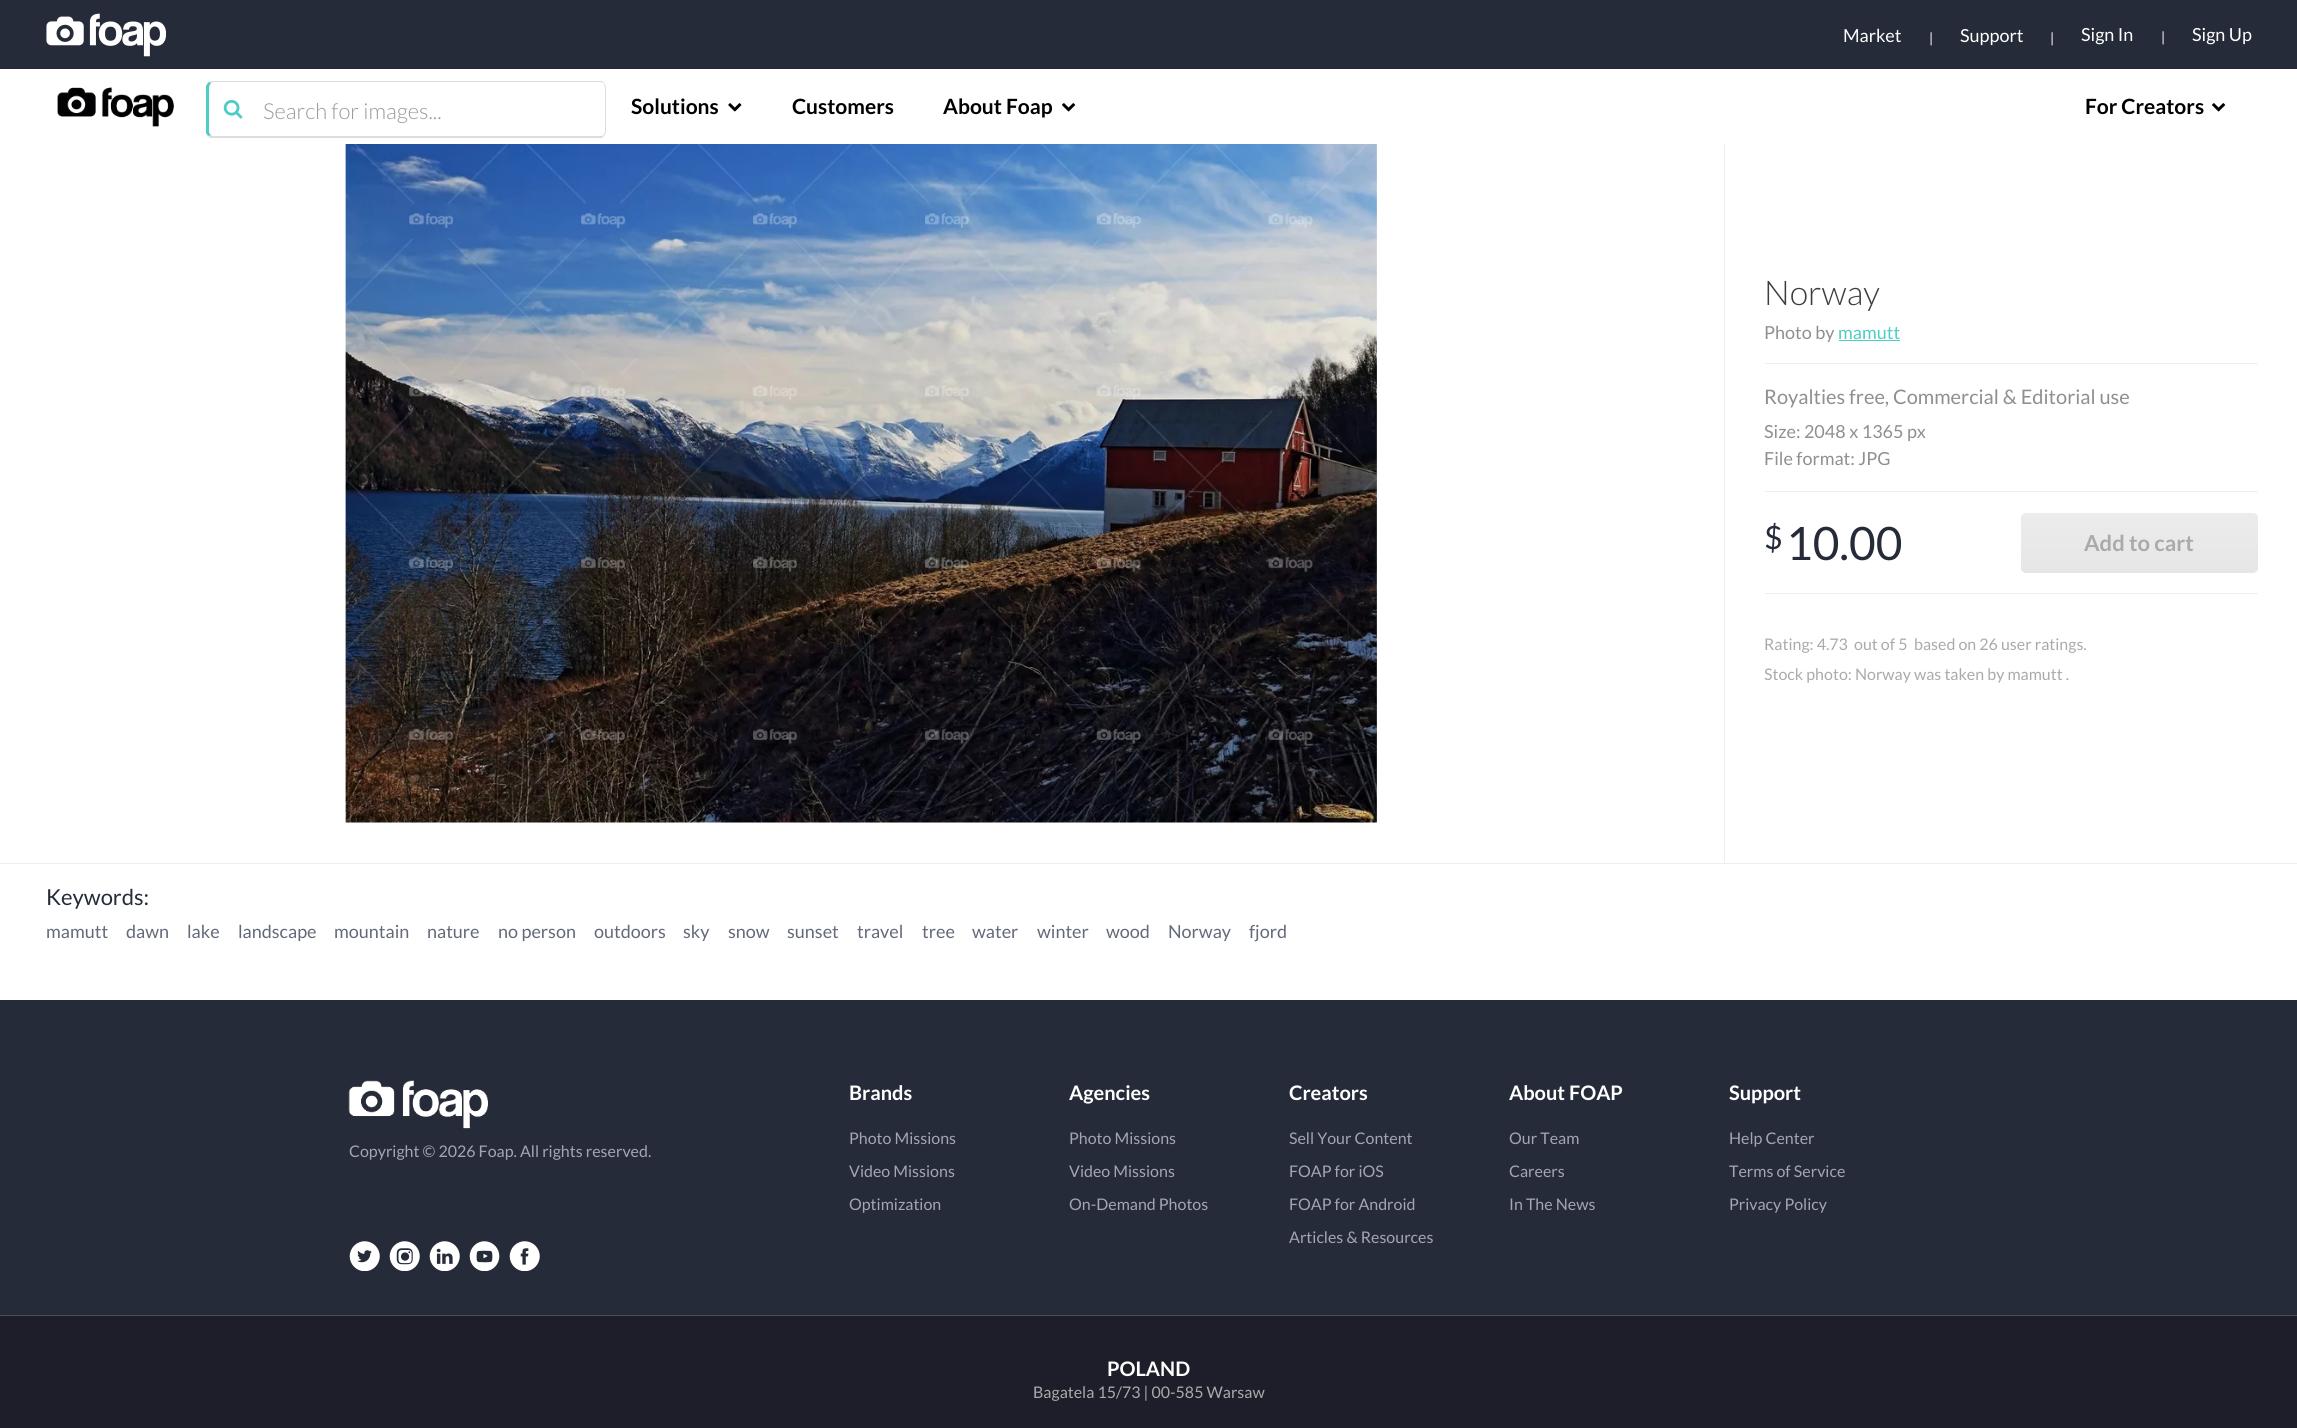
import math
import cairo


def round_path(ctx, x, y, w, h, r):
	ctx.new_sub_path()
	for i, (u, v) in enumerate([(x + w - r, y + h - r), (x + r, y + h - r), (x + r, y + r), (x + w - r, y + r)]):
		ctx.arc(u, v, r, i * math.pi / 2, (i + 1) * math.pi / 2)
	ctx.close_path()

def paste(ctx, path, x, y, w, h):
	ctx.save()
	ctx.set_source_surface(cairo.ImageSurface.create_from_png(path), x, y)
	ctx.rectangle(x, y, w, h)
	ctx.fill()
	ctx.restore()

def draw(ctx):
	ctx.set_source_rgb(1, 1, 1)
	ctx.paint()
	ctx.set_source_rgb(0.149, 0.169, 0.224)
	ctx.rectangle(0, 0, 2297, 69)
	ctx.fill()
	paste(ctx, 'media/1.png', 46, 13, 120, 44)
	ctx.select_font_face('Lato')
	ctx.set_font_size(18)
	ctx.set_source_rgb(1, 1, 1)
	ctx.move_to(1843, 42)
	ctx.show_text('Market')
	ctx.set_font_size(14)
	ctx.move_to(1929, 43)
	ctx.show_text('|')
	ctx.set_font_size(18)
	ctx.move_to(1960, 42)
	ctx.show_text('Support')
	ctx.set_font_size(14)
	ctx.move_to(2050, 43)
	ctx.show_text('|')
	ctx.set_font_size(18)
	ctx.move_to(2081, 41)
	ctx.show_text('Sign In')
	ctx.set_font_size(14)
	ctx.move_to(2161, 42)
	ctx.show_text('|')
	ctx.set_font_size(18)
	ctx.move_to(2192, 41)
	ctx.show_text('Sign Up')
	paste(ctx, 'media/2.png', 57, 87, 117, 40)
	paste(ctx, 'media/3.png', 223, 99, 20, 20)
	ctx.set_source_rgb(0.867, 0.867, 0.867)
	ctx.new_path()
	ctx.move_to(213, 82)
	ctx.line_to(211, 83)
	ctx.line_to(209, 82)
	ctx.line_to(211, 81)
	ctx.line_to(602, 81)
	ctx.line_to(604, 83)
	ctx.line_to(604, 84)
	ctx.curve_to(603, 83, 602, 82, 600, 82)
	ctx.close_path()
	ctx.fill()
	ctx.new_path()
	ctx.move_to(604, 83)
	ctx.curve_to(605, 84, 606, 86, 606, 88)
	ctx.line_to(606, 131)
	ctx.curve_to(606, 133, 605, 134, 604, 136)
	ctx.line_to(603, 135)
	ctx.curve_to(604, 134, 605, 133, 605, 131)
	ctx.line_to(605, 88)
	ctx.curve_to(605, 86, 604, 85, 604, 84)
	ctx.close_path()
	ctx.fill()
	ctx.new_path()
	ctx.move_to(210, 138)
	ctx.line_to(208, 136)
	ctx.line_to(211, 135)
	ctx.line_to(213, 136)
	ctx.line_to(600, 136)
	ctx.curve_to(601, 136, 603, 136, 603, 135)
	ctx.line_to(604, 136)
	ctx.line_to(602, 138)
	ctx.close_path()
	ctx.fill()
	ctx.set_source_rgb(0.306, 0.804, 0.769)
	ctx.new_path()
	ctx.move_to(206, 86)
	ctx.curve_to(207, 85, 207, 83, 209, 82)
	ctx.line_to(211, 83)
	ctx.curve_to(210, 85, 209, 86, 209, 88)
	ctx.line_to(209, 131)
	ctx.curve_to(209, 133, 210, 134, 211, 135)
	ctx.line_to(208, 136)
	ctx.line_to(206, 133)
	ctx.close_path()
	ctx.fill()
	ctx.select_font_face('Lato Light')
	ctx.set_font_size(22)
	ctx.set_source_rgb(0.6, 0.6, 0.6)
	ctx.move_to(263, 119)
	ctx.show_text('Search for images...')
	ctx.select_font_face('Lato', cairo.FONT_SLANT_NORMAL, cairo.FONT_WEIGHT_BOLD)
	ctx.set_font_size(21)
	ctx.set_source_rgb(0, 0, 0)
	ctx.move_to(631, 114)
	ctx.show_text('Solutions')
	paste(ctx, 'media/4.png', 728, 103, 14, 9)
	ctx.move_to(792, 114)
	ctx.show_text('Customers')
	ctx.move_to(943, 114)
	ctx.show_text('About Foap')
	paste(ctx, 'media/5.png', 1062, 103, 14, 9)
	ctx.move_to(2085, 114)
	ctx.show_text('For Creators')
	paste(ctx, 'media/5.png', 2212, 103, 14, 9)
	ctx.set_source_rgb(0.933, 0.933, 0.933)
	ctx.rectangle(0, 863, 2297, 1)
	ctx.fill()
	paste(ctx, 'media/6.png', 345, 144, 1032, 679)
	ctx.rectangle(1724, 144, 1, 719)
	ctx.fill()
	ctx.rectangle(1765, 363, 493, 1)
	ctx.fill()
	ctx.select_font_face('Lato Light')
	ctx.set_font_size(34)
	ctx.set_source_rgb(0.239, 0.239, 0.239)
	ctx.move_to(1764, 305)
	ctx.show_text('Norway')
	ctx.select_font_face('Lato')
	ctx.set_font_size(18)
	ctx.set_source_rgb(0.561, 0.561, 0.561)
	ctx.move_to(1764, 339)
	ctx.show_text('Photo by')
	ctx.set_source_rgb(0.306, 0.804, 0.769)
	ctx.move_to(1838, 339)
	ctx.show_text('mamutt')
	ctx.rectangle(1839, 340, 61, 1)
	ctx.fill()
	ctx.set_font_size(20)
	ctx.set_source_rgb(0.561, 0.561, 0.561)
	ctx.move_to(1764, 404)
	ctx.show_text('Royalties free, Commercial & Editorial use')
	ctx.set_font_size(18)
	ctx.move_to(1764, 438)
	ctx.show_text('Size: 2048 x 1365 px')
	ctx.move_to(1764, 465)
	ctx.show_text('File format: JPG')
	ctx.set_source_rgb(0.933, 0.933, 0.933)
	ctx.rectangle(1765, 491, 493, 1)
	ctx.fill()
	ctx.set_font_size(32)
	ctx.set_source_rgb(0.149, 0.169, 0.224)
	ctx.move_to(1764, 549)
	ctx.show_text('$')
	ctx.set_font_size(46)
	ctx.move_to(1786, 560)
	ctx.show_text('10.00')
	gradient = cairo.LinearGradient(2139, 573, 2139, 513)
	gradient.add_color_stop_rgba(0, 0.902, 0.902, 0.902, 1)
	gradient.add_color_stop_rgba(1, 0.925, 0.925, 0.925, 1)
	ctx.set_source(gradient)
	round_path(ctx, 2021, 513, 237, 60, 5)
	ctx.fill()
	ctx.select_font_face('Lato', cairo.FONT_SLANT_NORMAL, cairo.FONT_WEIGHT_BOLD)
	ctx.set_font_size(22)
	ctx.set_source_rgb(0.667, 0.667, 0.667)
	ctx.move_to(2084, 551)
	ctx.show_text('Add to cart')
	ctx.set_source_rgb(0.933, 0.933, 0.933)
	ctx.rectangle(1765, 593, 493, 1)
	ctx.fill()
	ctx.select_font_face('Lato')
	ctx.set_font_size(16)
	ctx.set_source_rgb(0.667, 0.667, 0.667)
	for x, y, s in [
		(1764, 650, 'Rating: 4.73'),
		(1854, 650, 'out of 5'),
		(1914, 650, 'based on 26 user ratings.'),
		(1764, 680, 'Stock photo: Norway was taken by mamutt .'),
	]:
		ctx.move_to(x, y)
		ctx.show_text(s)
	ctx.set_font_size(22)
	ctx.set_source_rgb(0.149, 0.169, 0.224)
	ctx.move_to(46, 905)
	ctx.show_text('Keywords:')
	ctx.set_font_size(18)
	ctx.set_source_rgb(0.388, 0.412, 0.471)
	for x, y, s in [
		(46, 938, 'mamutt'),
		(126, 938, 'dawn'),
		(187, 938, 'lake'),
		(238, 938, 'landscape'),
		(334, 938, 'mountain'),
		(427, 938, 'nature'),
		(498, 938, 'no person'),
		(594, 938, 'outdoors'),
		(683, 938, 'sky'),
		(728, 938, 'snow'),
		(787, 938, 'sunset'),
		(857, 938, 'travel'),
		(922, 938, 'tree'),
		(972, 938, 'water'),
		(1037, 938, 'winter'),
		(1106, 938, 'wood'),
		(1168, 938, 'Norway'),
		(1249, 938, 'fjord'),
	]:
		ctx.move_to(x, y)
		ctx.show_text(s)
	ctx.set_source_rgb(0.149, 0.169, 0.224)
	ctx.rectangle(0, 1000, 2297, 315)
	ctx.fill()
	paste(ctx, 'media/7.png', 348, 1080, 140, 49)
	ctx.set_font_size(16)
	ctx.set_source_rgb(0.639, 0.651, 0.702)
	ctx.move_to(349, 1157)
	ctx.show_text('Copyright © 2026 Foap. All rights reserved.')
	paste(ctx, 'media/8.png', 349, 1241, 31, 30)
	paste(ctx, 'media/9.png', 389, 1241, 31, 30)
	paste(ctx, 'media/10.png', 429, 1241, 31, 30)
	paste(ctx, 'media/11.png', 469, 1241, 31, 30)
	paste(ctx, 'media/12.png', 509, 1241, 31, 30)
	ctx.select_font_face('Lato', cairo.FONT_SLANT_NORMAL, cairo.FONT_WEIGHT_BOLD)
	ctx.set_font_size(20)
	ctx.set_source_rgb(1, 1, 1)
	ctx.move_to(849, 1100)
	ctx.show_text('Brands')
	ctx.select_font_face('Lato')
	ctx.set_font_size(16)
	ctx.set_source_rgb(0.639, 0.651, 0.702)
	for x, y, s in [
		(849, 1144, 'Photo Missions'),
		(849, 1177, 'Video Missions'),
		(849, 1210, 'Optimization'),
	]:
		ctx.move_to(x, y)
		ctx.show_text(s)
	ctx.select_font_face('Lato', cairo.FONT_SLANT_NORMAL, cairo.FONT_WEIGHT_BOLD)
	ctx.set_font_size(20)
	ctx.set_source_rgb(1, 1, 1)
	ctx.move_to(1069, 1100)
	ctx.show_text('Agencies')
	ctx.select_font_face('Lato')
	ctx.set_font_size(16)
	ctx.set_source_rgb(0.639, 0.651, 0.702)
	for x, y, s in [
		(1069, 1144, 'Photo Missions'),
		(1069, 1177, 'Video Missions'),
		(1069, 1210, 'On-Demand Photos'),
	]:
		ctx.move_to(x, y)
		ctx.show_text(s)
	ctx.select_font_face('Lato', cairo.FONT_SLANT_NORMAL, cairo.FONT_WEIGHT_BOLD)
	ctx.set_font_size(20)
	ctx.set_source_rgb(1, 1, 1)
	ctx.move_to(1289, 1100)
	ctx.show_text('Creators')
	ctx.select_font_face('Lato')
	ctx.set_font_size(16)
	ctx.set_source_rgb(0.639, 0.651, 0.702)
	for x, y, s in [
		(1289, 1144, 'Sell Your Content'),
		(1289, 1177, 'FOAP for iOS'),
		(1289, 1210, 'FOAP for Android'),
		(1289, 1243, 'Articles & Resources'),
	]:
		ctx.move_to(x, y)
		ctx.show_text(s)
	ctx.select_font_face('Lato', cairo.FONT_SLANT_NORMAL, cairo.FONT_WEIGHT_BOLD)
	ctx.set_font_size(20)
	ctx.set_source_rgb(1, 1, 1)
	ctx.move_to(1509, 1100)
	ctx.show_text('About FOAP')
	ctx.select_font_face('Lato')
	ctx.set_font_size(16)
	ctx.set_source_rgb(0.639, 0.651, 0.702)
	for x, y, s in [
		(1509, 1144, 'Our Team'),
		(1509, 1177, 'Careers'),
		(1509, 1210, 'In The News'),
	]:
		ctx.move_to(x, y)
		ctx.show_text(s)
	ctx.select_font_face('Lato', cairo.FONT_SLANT_NORMAL, cairo.FONT_WEIGHT_BOLD)
	ctx.set_font_size(20)
	ctx.set_source_rgb(1, 1, 1)
	ctx.move_to(1729, 1100)
	ctx.show_text('Support')
	ctx.select_font_face('Lato')
	ctx.set_font_size(16)
	ctx.set_source_rgb(0.639, 0.651, 0.702)
	for x, y, s in [
		(1729, 1144, 'Help Center'),
		(1729, 1177, 'Terms of Service'),
		(1729, 1210, 'Privacy Policy'),
	]:
		ctx.move_to(x, y)
		ctx.show_text(s)
	ctx.set_source_rgb(0.118, 0.118, 0.169)
	ctx.rectangle(0, 1316, 2297, 112)
	ctx.fill()
	ctx.set_source_rgb(0.306, 0.31, 0.325)
	ctx.rectangle(0, 1315, 2297, 1)
	ctx.fill()
	ctx.select_font_face('Lato', cairo.FONT_SLANT_NORMAL, cairo.FONT_WEIGHT_BOLD)
	ctx.set_font_size(20)
	ctx.set_source_rgb(1, 1, 1)
	ctx.move_to(1107, 1376)
	ctx.show_text('POLAND')
	ctx.select_font_face('Lato')
	ctx.set_font_size(16)
	ctx.set_source_rgb(0.667, 0.667, 0.667)
	ctx.move_to(1033, 1398)
	ctx.show_text('Bagatela 15/73 | 00-585 Warsaw')


surface = cairo.ImageSurface(cairo.FORMAT_RGB24, 2297, 1428)
ctx = cairo.Context(surface)
options = cairo.FontOptions()
options.set_hint_metrics(cairo.HINT_METRICS_OFF)
options.set_hint_style(cairo.HINT_STYLE_NONE)
ctx.set_font_options(options)
ctx.set_miter_limit(4)
draw(ctx)
surface.write_to_png('image.png')
